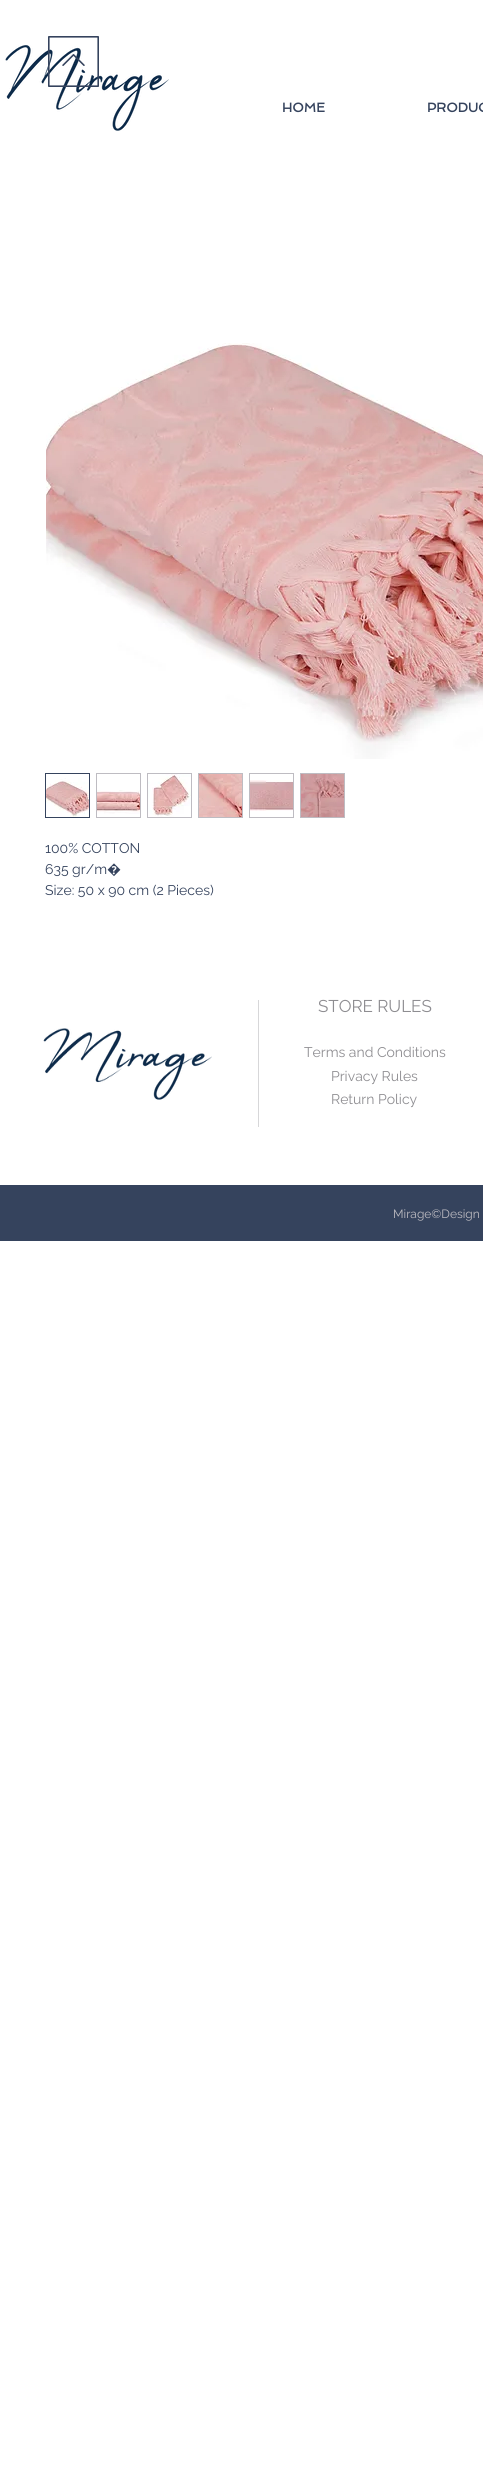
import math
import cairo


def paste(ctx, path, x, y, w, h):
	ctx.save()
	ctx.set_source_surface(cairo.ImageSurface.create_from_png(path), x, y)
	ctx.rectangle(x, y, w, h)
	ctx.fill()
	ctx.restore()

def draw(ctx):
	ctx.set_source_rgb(1, 1, 1)
	ctx.paint()
	paste(ctx, 'media/2.png', 5, 45, 164, 86)
	paste(ctx, 'media/1.png', 48, 36, 51, 51)
	ctx.select_font_face('Spinnaker', cairo.FONT_SLANT_NORMAL, cairo.FONT_WEIGHT_BOLD)
	ctx.set_font_size(13)
	ctx.set_source_rgb(0.208, 0.263, 0.365)
	ctx.move_to(282, 112)
	ctx.show_text('HOME')
	ctx.move_to(427, 112)
	ctx.show_text('PRODUC')
	paste(ctx, 'media/3.png', 46, 343, 437, 416)
	ctx.rectangle(45.5, 773.5, 44, 44)
	ctx.set_line_width(1)
	ctx.stroke()
	paste(ctx, 'media/4.png', 46, 778, 43, 39)
	ctx.rectangle(96.5, 773.5, 44, 44)
	ctx.set_source_rgb(0.745, 0.737, 0.761)
	ctx.stroke()
	paste(ctx, 'media/5.png', 97, 790, 43, 24)
	ctx.rectangle(147.5, 773.5, 44, 44)
	ctx.stroke()
	paste(ctx, 'media/6.png', 148, 774, 43, 43)
	ctx.rectangle(198.5, 773.5, 44, 44)
	ctx.stroke()
	paste(ctx, 'media/7.png', 199, 774, 43, 43)
	ctx.rectangle(249.5, 773.5, 44, 44)
	ctx.stroke()
	paste(ctx, 'media/8.png', 250, 780, 43, 31)
	ctx.rectangle(300.5, 773.5, 44, 44)
	ctx.stroke()
	paste(ctx, 'media/9.png', 301, 774, 43, 43)
	ctx.select_font_face('Raleway')
	ctx.set_font_size(14)
	ctx.set_source_rgb(0.208, 0.263, 0.365)
	ctx.move_to(45, 853)
	ctx.show_text('100% COTTON')
	ctx.move_to(45, 874)
	ctx.show_text('635 gr/m')
	ctx.select_font_face('Noto Sans')
	ctx.move_to(107, 874)
	ctx.show_text('�')
	ctx.select_font_face('Raleway')
	ctx.move_to(45, 895)
	ctx.show_text('Size: 50 x 90 cm (2 Pieces)')
	paste(ctx, 'media/10.png', 43, 1028, 169, 72)
	ctx.set_source_rgb(0.843, 0.843, 0.851)
	ctx.rectangle(258, 1000, 1, 127)
	ctx.fill()
	ctx.set_font_size(17)
	ctx.set_source_rgb(0.557, 0.553, 0.569)
	ctx.move_to(318, 1012)
	ctx.show_text('STORE RULES')
	ctx.set_font_size(14)
	for x, y, s in [
		(304, 1057, 'Terms and Conditions'),
		(331, 1081, 'Privacy Rules'),
		(331, 1104, 'Return Policy'),
	]:
		ctx.move_to(x, y)
		ctx.show_text(s)
	ctx.set_source_rgb(0.208, 0.263, 0.365)
	ctx.rectangle(0, 1185, 483, 56)
	ctx.fill()
	ctx.set_font_size(12)
	ctx.set_source_rgb(0.745, 0.737, 0.761)
	ctx.move_to(393, 1218)
	ctx.show_text('Mirage©Design')


surface = cairo.ImageSurface(cairo.FORMAT_RGB24, 483, 2465)
ctx = cairo.Context(surface)
options = cairo.FontOptions()
options.set_hint_metrics(cairo.HINT_METRICS_OFF)
options.set_hint_style(cairo.HINT_STYLE_NONE)
ctx.set_font_options(options)
ctx.set_miter_limit(4)
draw(ctx)
surface.write_to_png('image.png')
